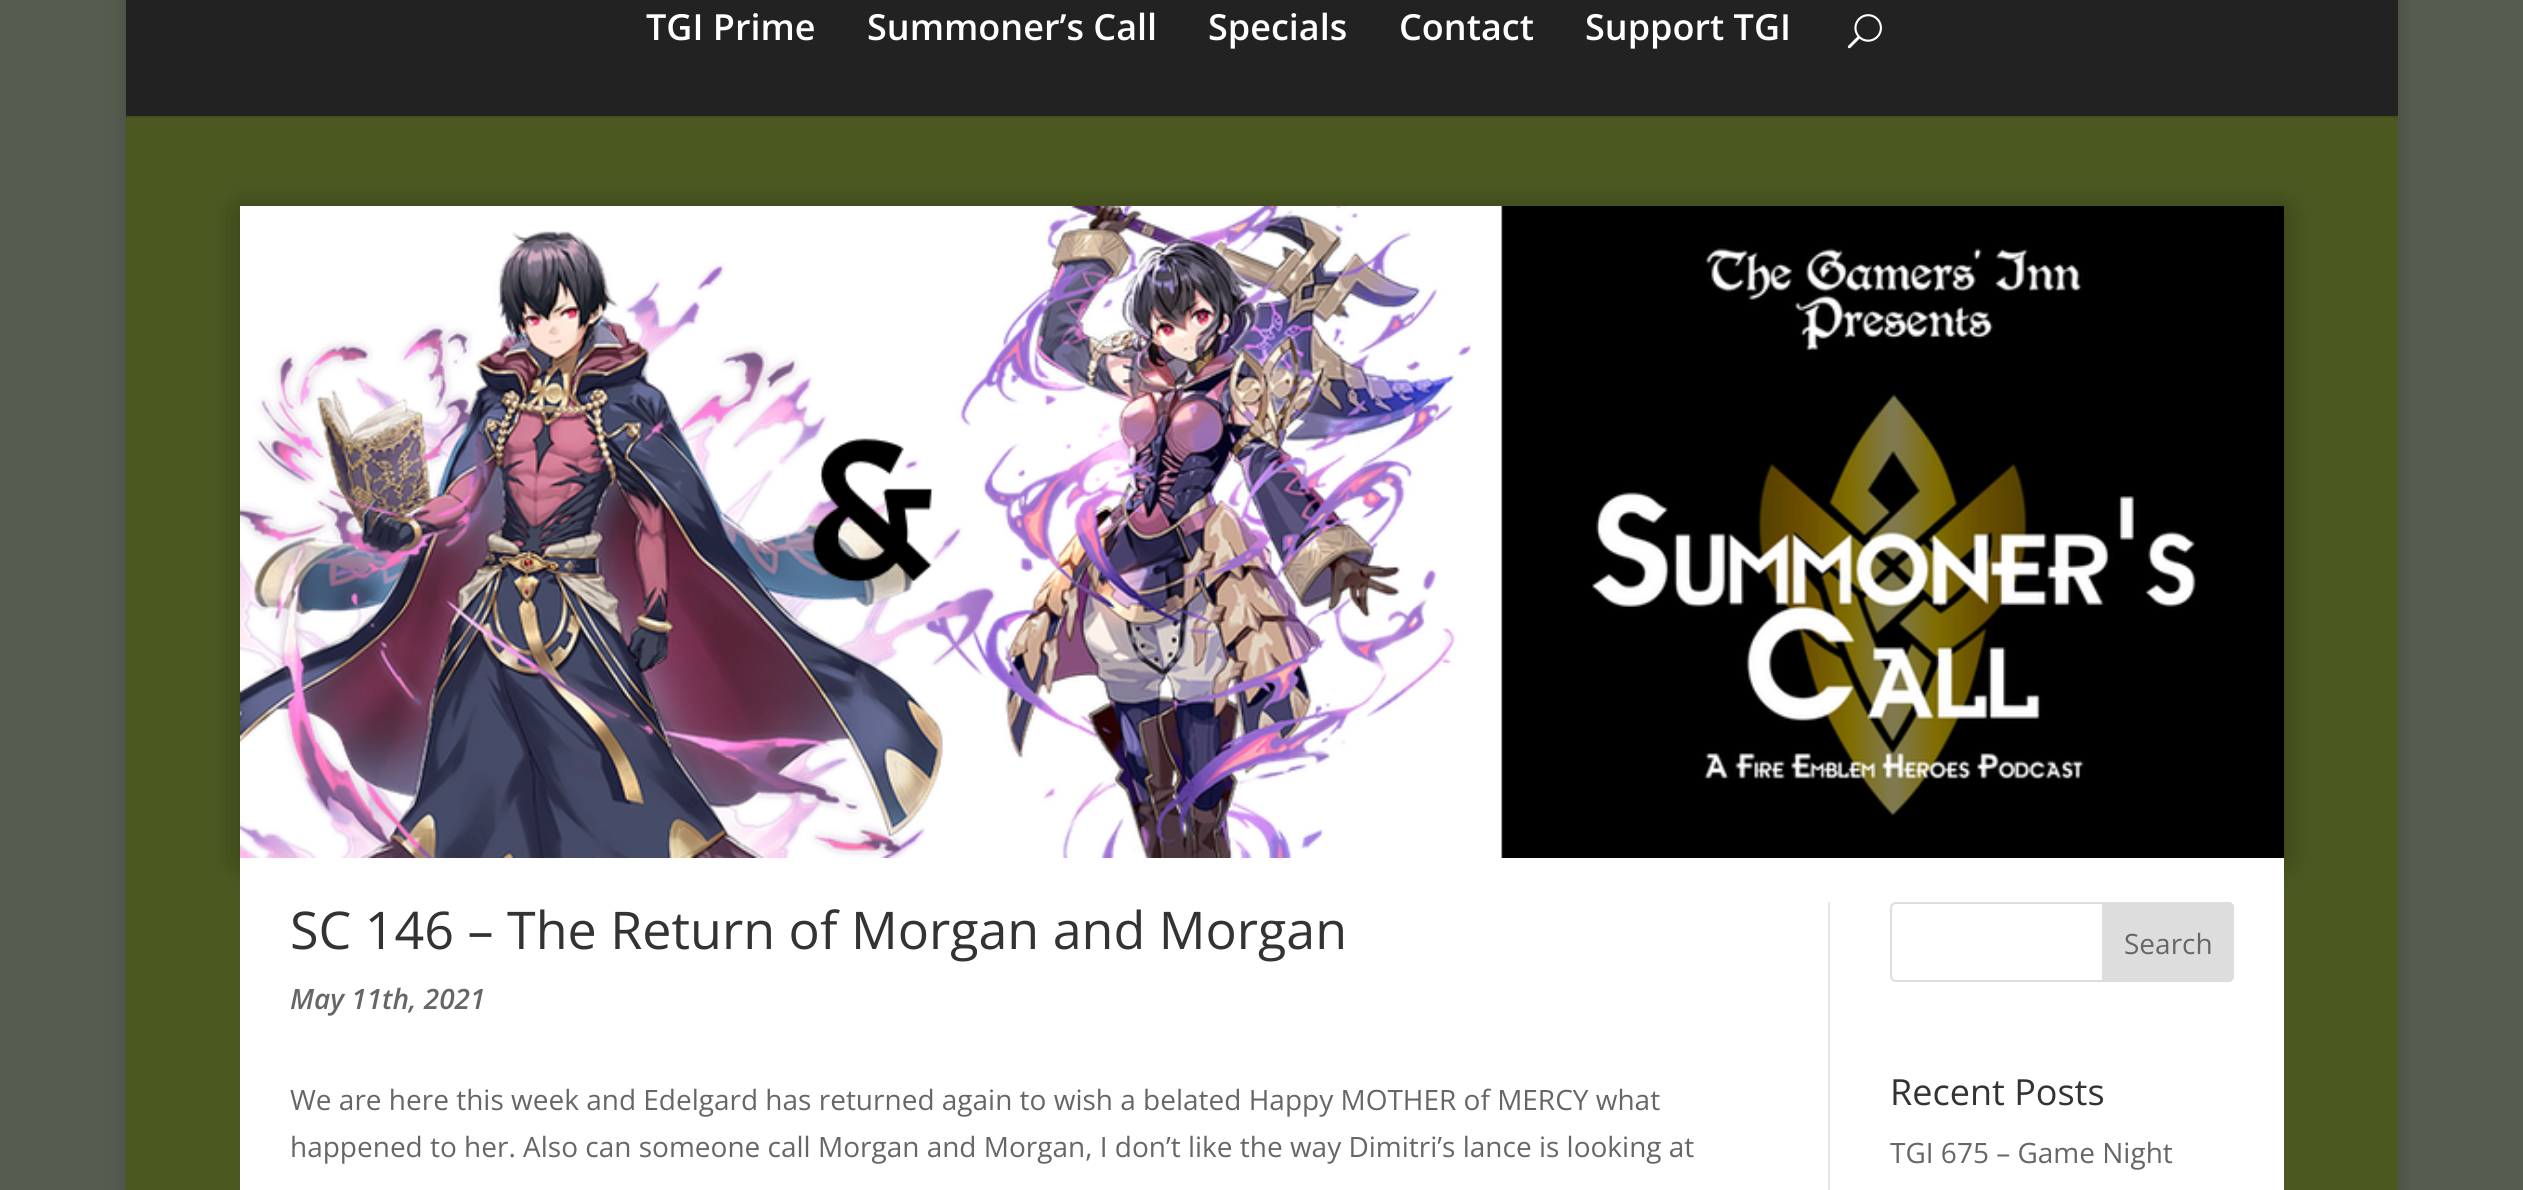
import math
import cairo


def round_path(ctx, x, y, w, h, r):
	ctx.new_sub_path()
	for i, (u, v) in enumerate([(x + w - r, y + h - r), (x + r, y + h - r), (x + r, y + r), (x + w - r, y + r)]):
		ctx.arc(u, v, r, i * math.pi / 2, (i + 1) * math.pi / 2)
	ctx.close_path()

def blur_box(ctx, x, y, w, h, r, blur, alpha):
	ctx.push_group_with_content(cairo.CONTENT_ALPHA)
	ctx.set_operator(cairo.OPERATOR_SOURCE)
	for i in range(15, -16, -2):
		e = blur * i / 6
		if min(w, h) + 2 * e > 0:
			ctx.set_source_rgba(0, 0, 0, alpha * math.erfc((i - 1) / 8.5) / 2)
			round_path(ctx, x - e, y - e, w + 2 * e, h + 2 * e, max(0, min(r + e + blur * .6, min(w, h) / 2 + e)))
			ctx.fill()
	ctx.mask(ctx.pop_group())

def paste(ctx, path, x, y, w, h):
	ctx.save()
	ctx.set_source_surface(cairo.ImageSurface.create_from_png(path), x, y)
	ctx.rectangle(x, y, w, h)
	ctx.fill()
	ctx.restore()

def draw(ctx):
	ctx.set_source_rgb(0.333, 0.365, 0.314)
	ctx.paint()
	ctx.set_source_rgb(0, 0, 0)
	blur_box(ctx, 126, -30, 2272, 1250, 0, 10, 0.2)
	ctx.set_source_rgb(0.267, 0.314, 0.118)
	ctx.rectangle(126, 116, 2272, 2)
	ctx.fill()
	ctx.set_source_rgb(0.133, 0.133, 0.133)
	ctx.rectangle(126, 0, 2272, 116)
	ctx.fill()
	ctx.select_font_face('Open Sans SemiBold')
	ctx.set_font_size(36)
	ctx.set_source_rgb(1, 1, 1)
	for x, y, s in [
		(646, 40, 'TGI Prime'),
		(867, 40, 'Summoner’s Call'),
		(1208, 40, 'Specials'),
		(1399, 40, 'Contact'),
		(1585, 40, 'Support TGI'),
	]:
		ctx.move_to(x, y)
		ctx.show_text(s)
	paste(ctx, 'media/1.png', 1847, 14, 35, 35)
	ctx.set_source_rgb(0.294, 0.349, 0.129)
	ctx.rectangle(126, 118, 2272, 1072)
	ctx.fill()
	ctx.set_source_rgb(0, 0, 0)
	blur_box(ctx, 240, 210, 2044, 652, 0, 18, 0.3)
	paste(ctx, 'media/2.png', 240, 206, 2044, 652)
	ctx.set_source_rgb(1, 1, 1)
	ctx.rectangle(240, 858, 2044, 332)
	ctx.fill()
	ctx.select_font_face('Open Sans')
	ctx.set_font_size(52)
	ctx.set_source_rgb(0.2, 0.2, 0.2)
	ctx.move_to(290, 949)
	ctx.show_text('SC 146 – The Return of Morgan and Morgan')
	ctx.select_font_face('Open Sans SemiBold', cairo.FONT_SLANT_ITALIC)
	ctx.set_font_size(28)
	ctx.set_source_rgb(0.4, 0.4, 0.4)
	ctx.move_to(290, 1009)
	ctx.show_text('May 11th, 2021')
	ctx.select_font_face('Open Sans')
	ctx.move_to(290, 1110)
	ctx.show_text('We are here this week and Edelgard has returned again to wish a belated Happy MOTHER of MERCY what')
	ctx.move_to(290, 1157)
	ctx.show_text('happened to her. Also can someone call Morgan and Morgan, I don’t like the way Dimitri’s lance is looking at')
	ctx.set_source_rgb(0.902, 0.902, 0.902)
	ctx.rectangle(1828, 902, 2, 288)
	ctx.fill()
	round_path(ctx, 1891, 903, 342, 78, 5)
	ctx.set_source_rgb(0.867, 0.867, 0.867)
	ctx.stroke()
	ctx.new_path()
	ctx.move_to(2103, 903)
	ctx.line_to(2228, 903)
	ctx.curve_to(2231, 903, 2233, 905, 2233, 908)
	ctx.line_to(2233, 976)
	ctx.curve_to(2233, 979, 2231, 981, 2228, 981)
	ctx.line_to(2103, 981)
	ctx.close_path()
	ctx.fill_preserve()
	ctx.stroke()
	ctx.set_source_rgb(0.4, 0.4, 0.4)
	ctx.move_to(2124, 954)
	ctx.show_text('Search')
	ctx.set_font_size(36)
	ctx.set_source_rgb(0.2, 0.2, 0.2)
	ctx.move_to(1890, 1105)
	ctx.show_text('Recent Posts')
	ctx.set_font_size(28)
	ctx.set_source_rgb(0.4, 0.4, 0.4)
	ctx.move_to(1890, 1163)
	ctx.show_text('TGI 675 – Game Night')


surface = cairo.ImageSurface(cairo.FORMAT_RGB24, 2523, 1190)
ctx = cairo.Context(surface)
options = cairo.FontOptions()
options.set_hint_metrics(cairo.HINT_METRICS_OFF)
options.set_hint_style(cairo.HINT_STYLE_NONE)
ctx.set_font_options(options)
ctx.set_miter_limit(4)
draw(ctx)
surface.write_to_png('image.png')
